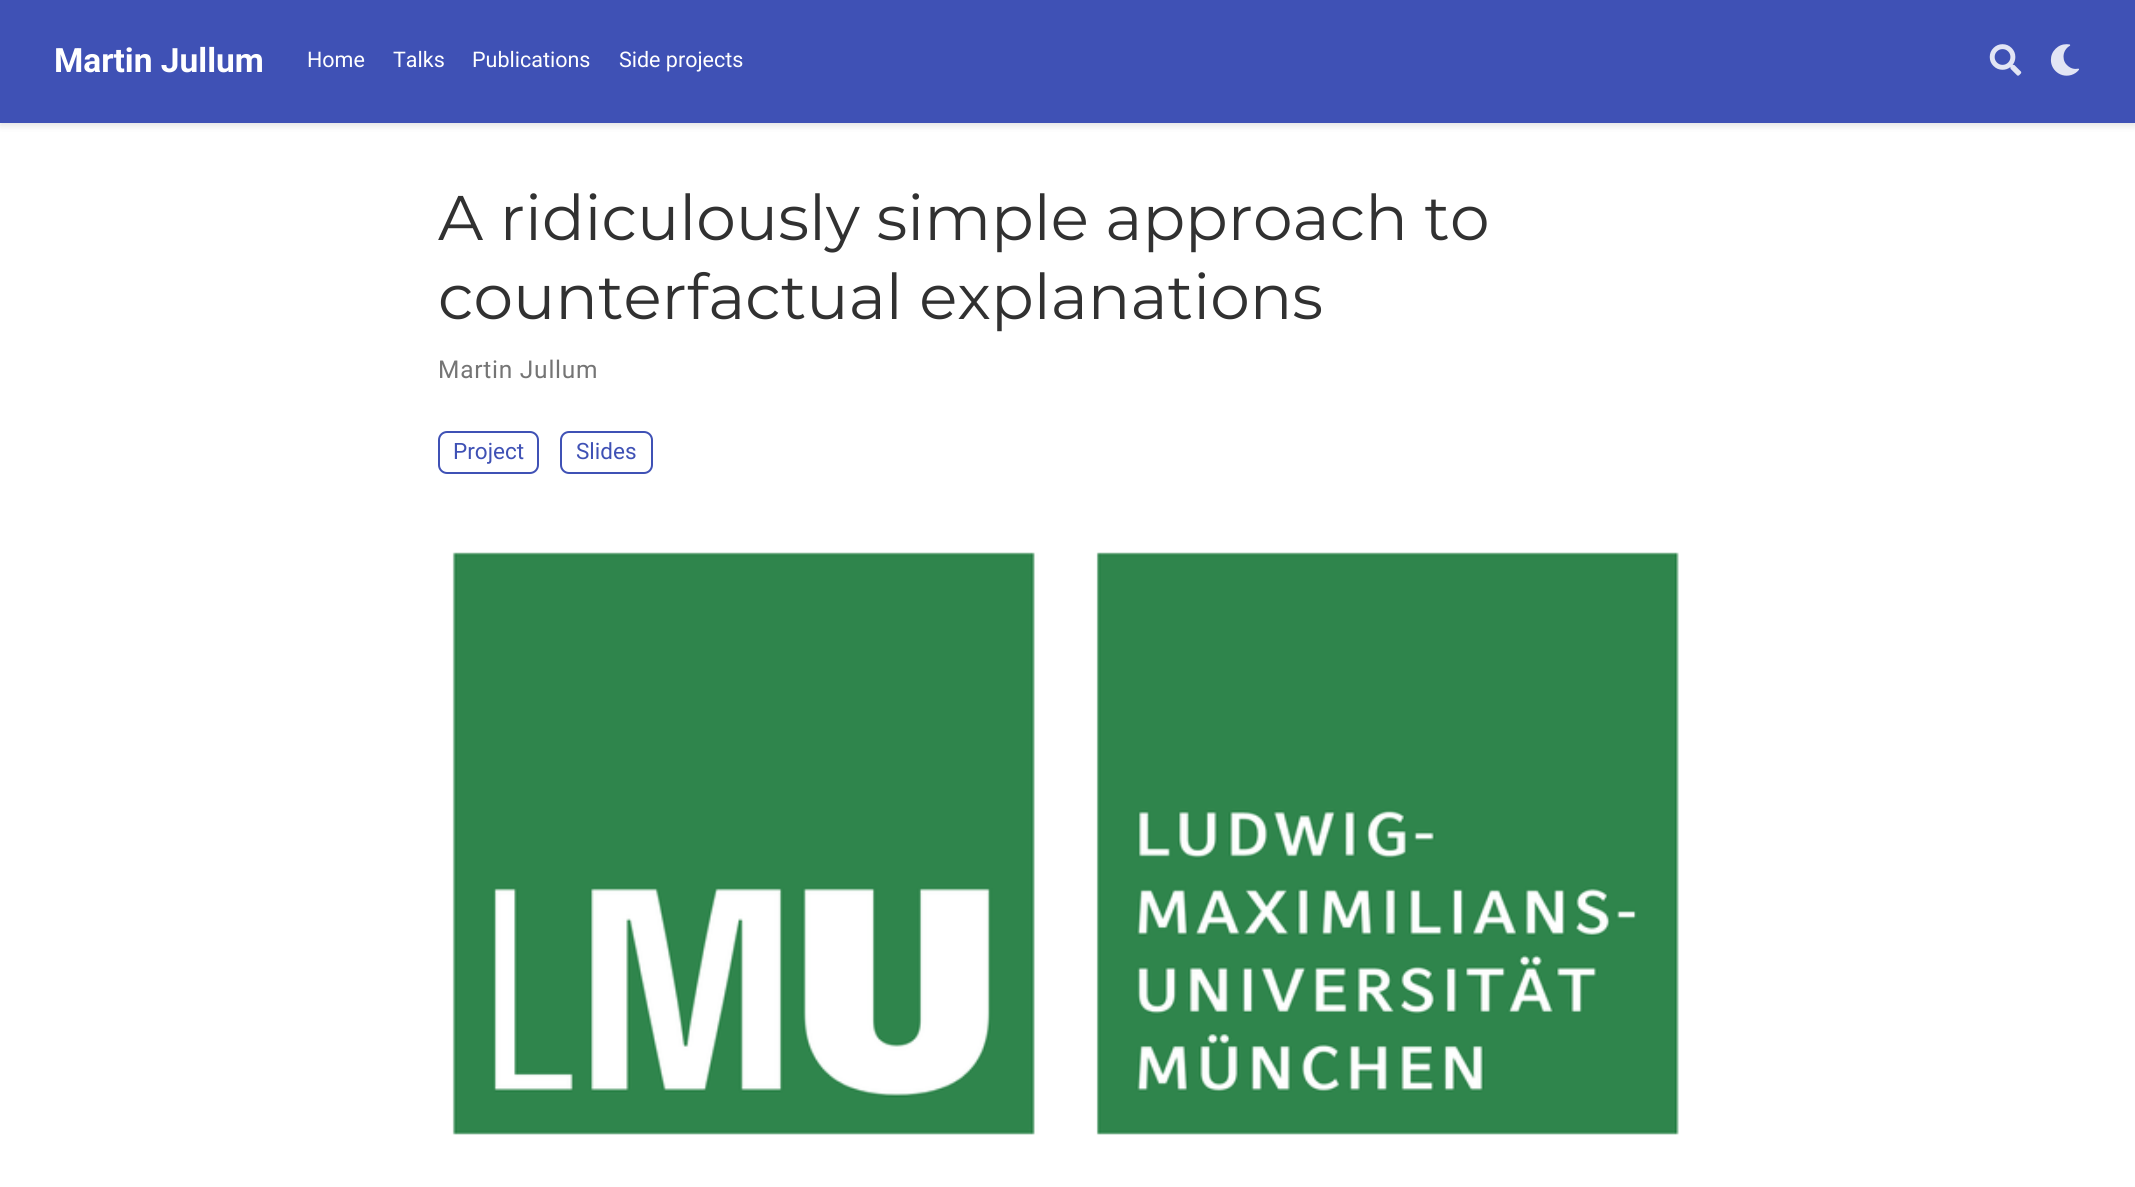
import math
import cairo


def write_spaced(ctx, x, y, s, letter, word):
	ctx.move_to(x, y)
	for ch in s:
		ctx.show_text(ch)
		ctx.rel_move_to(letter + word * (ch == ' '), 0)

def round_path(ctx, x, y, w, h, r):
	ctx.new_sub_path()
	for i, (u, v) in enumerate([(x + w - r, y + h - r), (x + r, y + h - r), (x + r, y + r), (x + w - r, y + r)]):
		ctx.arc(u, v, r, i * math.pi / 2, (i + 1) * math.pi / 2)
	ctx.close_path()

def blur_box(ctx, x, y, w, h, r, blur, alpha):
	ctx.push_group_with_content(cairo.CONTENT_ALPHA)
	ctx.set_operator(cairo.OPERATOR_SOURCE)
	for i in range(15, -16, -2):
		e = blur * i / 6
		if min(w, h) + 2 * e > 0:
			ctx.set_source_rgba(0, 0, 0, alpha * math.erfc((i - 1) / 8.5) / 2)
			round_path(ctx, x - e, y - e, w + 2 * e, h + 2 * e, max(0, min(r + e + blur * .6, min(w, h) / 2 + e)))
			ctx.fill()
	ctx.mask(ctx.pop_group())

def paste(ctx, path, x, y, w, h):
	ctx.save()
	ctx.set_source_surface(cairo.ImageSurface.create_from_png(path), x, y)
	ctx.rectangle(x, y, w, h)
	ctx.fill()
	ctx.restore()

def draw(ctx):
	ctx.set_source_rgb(1, 1, 1)
	ctx.paint()
	ctx.set_source_rgb(0, 0, 0)
	blur_box(ctx, 0, 4, 2135, 122, 0, 3.5, 0.11)
	ctx.set_source_rgb(0.247, 0.318, 0.71)
	ctx.rectangle(0, 0, 2135, 123)
	ctx.fill()
	ctx.select_font_face('Roboto', cairo.FONT_SLANT_NORMAL, cairo.FONT_WEIGHT_BOLD)
	ctx.set_font_size(33.5)
	ctx.set_source_rgb(1, 1, 1)
	ctx.move_to(54, 72)
	ctx.show_text('Martin Jullum')
	ctx.select_font_face('Roboto')
	ctx.set_font_size(21.5)
	for x, y, s in [
		(307, 67, 'Home'),
		(393, 67, 'Talks'),
		(472, 67, 'Publications'),
		(619, 67, 'Side projects'),
	]:
		ctx.move_to(x, y)
		ctx.show_text(s)
	paste(ctx, 'media/1.png', 1989, 44, 33, 32)
	paste(ctx, 'media/2.png', 2050, 44, 29, 32)
	ctx.select_font_face('Montserrat')
	ctx.set_font_size(63)
	ctx.set_source_rgb(0.192, 0.192, 0.192)
	ctx.move_to(438, 240)
	ctx.show_text('A ridiculously simple approach to')
	ctx.move_to(438, 319)
	ctx.show_text('counterfactual explanations')
	ctx.select_font_face('Roboto')
	ctx.set_font_size(24.5)
	ctx.set_source_rgb(0.459, 0.459, 0.459)
	write_spaced(ctx, 438, 378, 'Martin Jullum', 0.75, 0)
	round_path(ctx, 439, 432, 99, 41, 8)
	ctx.set_source_rgb(0.247, 0.318, 0.71)
	ctx.stroke()
	ctx.set_font_size(22.5)
	ctx.move_to(453, 459)
	ctx.show_text('Project')
	round_path(ctx, 561, 432, 91, 41, 8)
	ctx.stroke()
	ctx.move_to(576, 459)
	ctx.show_text('Slides')
	paste(ctx, 'media/3.png', 452, 552, 1227, 583)


surface = cairo.ImageSurface(cairo.FORMAT_RGB24, 2135, 1187)
ctx = cairo.Context(surface)
options = cairo.FontOptions()
options.set_hint_metrics(cairo.HINT_METRICS_OFF)
options.set_hint_style(cairo.HINT_STYLE_NONE)
ctx.set_font_options(options)
ctx.set_miter_limit(4)
draw(ctx)
surface.write_to_png('image.png')
